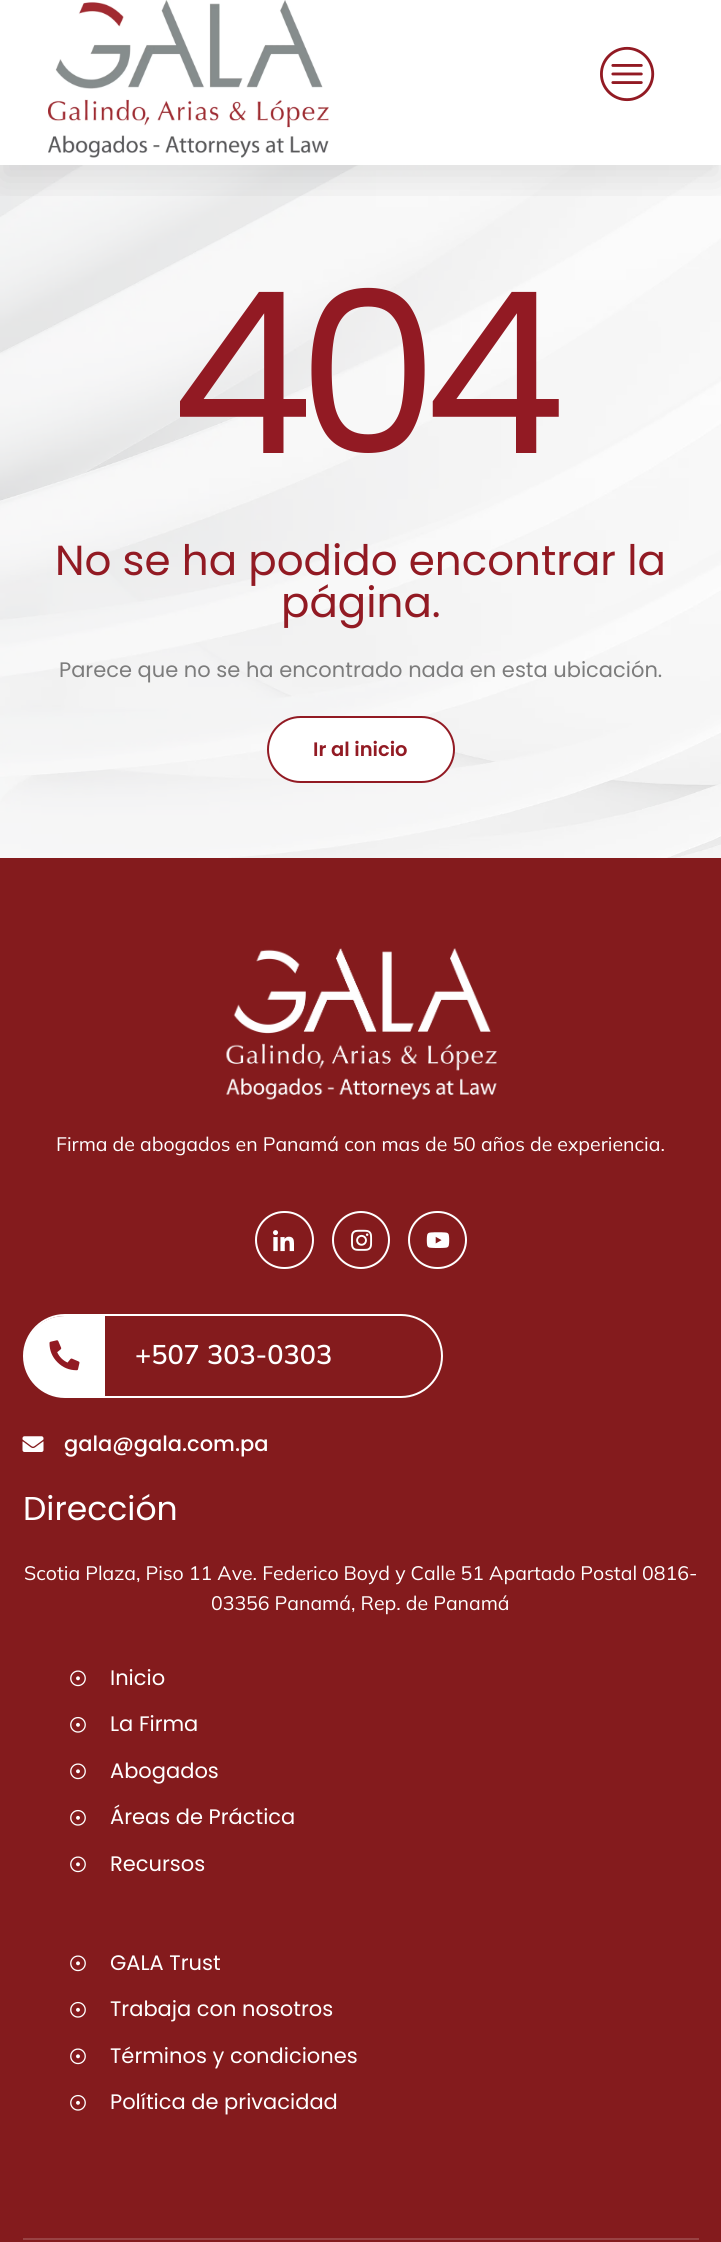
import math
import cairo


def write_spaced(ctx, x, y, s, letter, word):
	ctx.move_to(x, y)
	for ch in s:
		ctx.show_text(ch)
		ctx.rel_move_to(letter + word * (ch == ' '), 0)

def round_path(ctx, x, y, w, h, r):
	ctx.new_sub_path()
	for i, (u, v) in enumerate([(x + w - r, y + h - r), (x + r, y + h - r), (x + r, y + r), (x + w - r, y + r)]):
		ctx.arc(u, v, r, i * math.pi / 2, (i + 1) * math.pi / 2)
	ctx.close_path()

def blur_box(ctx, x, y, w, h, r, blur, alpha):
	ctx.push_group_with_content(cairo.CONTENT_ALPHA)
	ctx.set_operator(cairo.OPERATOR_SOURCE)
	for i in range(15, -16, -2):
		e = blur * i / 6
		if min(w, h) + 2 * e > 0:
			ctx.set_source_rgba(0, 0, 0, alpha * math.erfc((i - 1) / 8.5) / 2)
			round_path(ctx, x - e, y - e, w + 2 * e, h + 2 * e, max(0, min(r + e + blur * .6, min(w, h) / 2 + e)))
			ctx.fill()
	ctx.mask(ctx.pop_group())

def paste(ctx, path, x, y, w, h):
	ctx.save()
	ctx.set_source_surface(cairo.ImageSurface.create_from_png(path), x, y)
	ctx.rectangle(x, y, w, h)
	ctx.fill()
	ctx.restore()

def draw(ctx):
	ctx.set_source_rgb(1, 1, 1)
	ctx.paint()
	paste(ctx, 'media/3.png', 0, 165, 721, 693)
	ctx.save()
	ctx.rectangle(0, 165, 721, 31)
	ctx.clip()
	ctx.set_source_rgb(0, 0, 0)
	blur_box(ctx, 0, 15, 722, 165, 0, 19, 0.1)
	ctx.restore()
	paste(ctx, 'media/1.png', 48, 0, 281, 158)
	paste(ctx, 'media/2.png', 600, 46, 55, 56)
	ctx.select_font_face('Poppins')
	ctx.set_font_size(225)
	ctx.set_source_rgb(0.573, 0.102, 0.137)
	write_spaced(ctx, 171, 453, '404', -15, 0)
	ctx.set_font_size(42)
	ctx.move_to(55, 575)
	ctx.show_text('No se ha podido encontrar la')
	ctx.move_to(281, 617)
	ctx.show_text('página.')
	ctx.set_font_size(21)
	ctx.set_source_rgb(0.486, 0.486, 0.486)
	ctx.move_to(59, 677)
	ctx.show_text('Parece que no se ha encontrado nada en esta ubicación.')
	ctx.set_source_rgb(1, 1, 1)
	round_path(ctx, 268, 717, 186, 65, 32.5)
	ctx.fill_preserve()
	ctx.set_source_rgb(0.573, 0.102, 0.137)
	ctx.stroke()
	ctx.select_font_face('Poppins SemiBold')
	ctx.set_font_size(19.5)
	ctx.move_to(313, 756)
	ctx.show_text('Ir al inicio')
	ctx.set_source_rgb(0.518, 0.106, 0.114)
	ctx.rectangle(0, 858, 721, 1384)
	ctx.fill()
	ctx.set_source_rgb(0.6, 0.259, 0.263)
	ctx.rectangle(23, 2238, 676, 2)
	ctx.fill()
	paste(ctx, 'media/4.png', 226, 948, 271, 152)
	ctx.select_font_face('Mulish')
	ctx.set_source_rgb(1, 1, 1)
	ctx.move_to(56, 1151)
	ctx.show_text('Firma de abogados en Panamá con mas de 50 años de experiencia.')
	round_path(ctx, 256, 1212, 57, 56, 28)
	ctx.stroke()
	paste(ctx, 'media/5.png', 273, 1230, 21, 22)
	ctx.arc(361, 1240, 28, 0, 2 * math.pi)
	ctx.stroke()
	paste(ctx, 'media/6.png', 351, 1229, 22, 22)
	round_path(ctx, 409, 1212, 57, 56, 28)
	ctx.stroke()
	paste(ctx, 'media/7.png', 426, 1232, 24, 16)
	round_path(ctx, 24, 1315, 418, 82, 41)
	ctx.stroke()
	ctx.new_path()
	ctx.move_to(64.5, 1316)
	ctx.line_to(105, 1316)
	ctx.line_to(105, 1397)
	ctx.line_to(64.5, 1397)
	ctx.curve_to(42, 1397, 24, 1379, 24, 1356.5)
	ctx.curve_to(24, 1334, 42, 1316, 64.5, 1316)
	ctx.close_path()
	ctx.fill()
	paste(ctx, 'media/8.png', 49, 1340, 31, 31)
	ctx.select_font_face('Mulish SemiBold')
	ctx.set_font_size(27)
	ctx.move_to(135, 1364)
	ctx.show_text('+507 303-0303')
	paste(ctx, 'media/9.png', 22, 1436, 22, 16)
	ctx.select_font_face('Poppins Medium')
	ctx.set_font_size(21)
	ctx.move_to(64, 1451)
	ctx.show_text('gala@gala.com.pa')
	ctx.select_font_face('Poppins')
	ctx.set_font_size(33)
	ctx.move_to(23, 1520)
	ctx.show_text('Dirección')
	ctx.select_font_face('Mulish')
	ctx.set_font_size(19.5)
	ctx.move_to(24, 1580)
	ctx.show_text('Scotia Plaza, Piso 11 Ave. Federico Boyd y Calle 51 Apartado Postal 0816-')
	ctx.move_to(211, 1610)
	ctx.show_text('03356 Panamá, Rep. de Panamá')
	paste(ctx, 'media/10.png', 70, 1670, 16, 17)
	ctx.select_font_face('Poppins')
	ctx.set_font_size(21)
	ctx.move_to(110, 1685)
	ctx.show_text('Inicio')
	paste(ctx, 'media/11.png', 70, 1716, 16, 17)
	ctx.move_to(110, 1731)
	ctx.show_text('La Firma')
	paste(ctx, 'media/10.png', 70, 1763, 16, 17)
	ctx.move_to(110, 1778)
	ctx.show_text('Abogados')
	paste(ctx, 'media/11.png', 70, 1809, 16, 17)
	ctx.move_to(110, 1824)
	ctx.show_text('Áreas de Práctica')
	paste(ctx, 'media/10.png', 70, 1856, 16, 17)
	ctx.move_to(110, 1871)
	ctx.show_text('Recursos')
	paste(ctx, 'media/10.png', 70, 1955, 16, 17)
	ctx.move_to(110, 1970)
	ctx.show_text('GALA Trust')
	paste(ctx, 'media/11.png', 70, 2001, 16, 17)
	ctx.move_to(110, 2016)
	ctx.show_text('Trabaja con nosotros')
	paste(ctx, 'media/10.png', 70, 2048, 16, 17)
	ctx.move_to(110, 2063)
	ctx.show_text('Términos y condiciones')
	paste(ctx, 'media/11.png', 70, 2094, 16, 17)
	ctx.move_to(110, 2109)
	ctx.show_text('Política de privacidad')


surface = cairo.ImageSurface(cairo.FORMAT_RGB24, 721, 2242)
ctx = cairo.Context(surface)
options = cairo.FontOptions()
options.set_hint_metrics(cairo.HINT_METRICS_OFF)
options.set_hint_style(cairo.HINT_STYLE_NONE)
ctx.set_font_options(options)
ctx.set_miter_limit(4)
draw(ctx)
surface.write_to_png('image.png')
